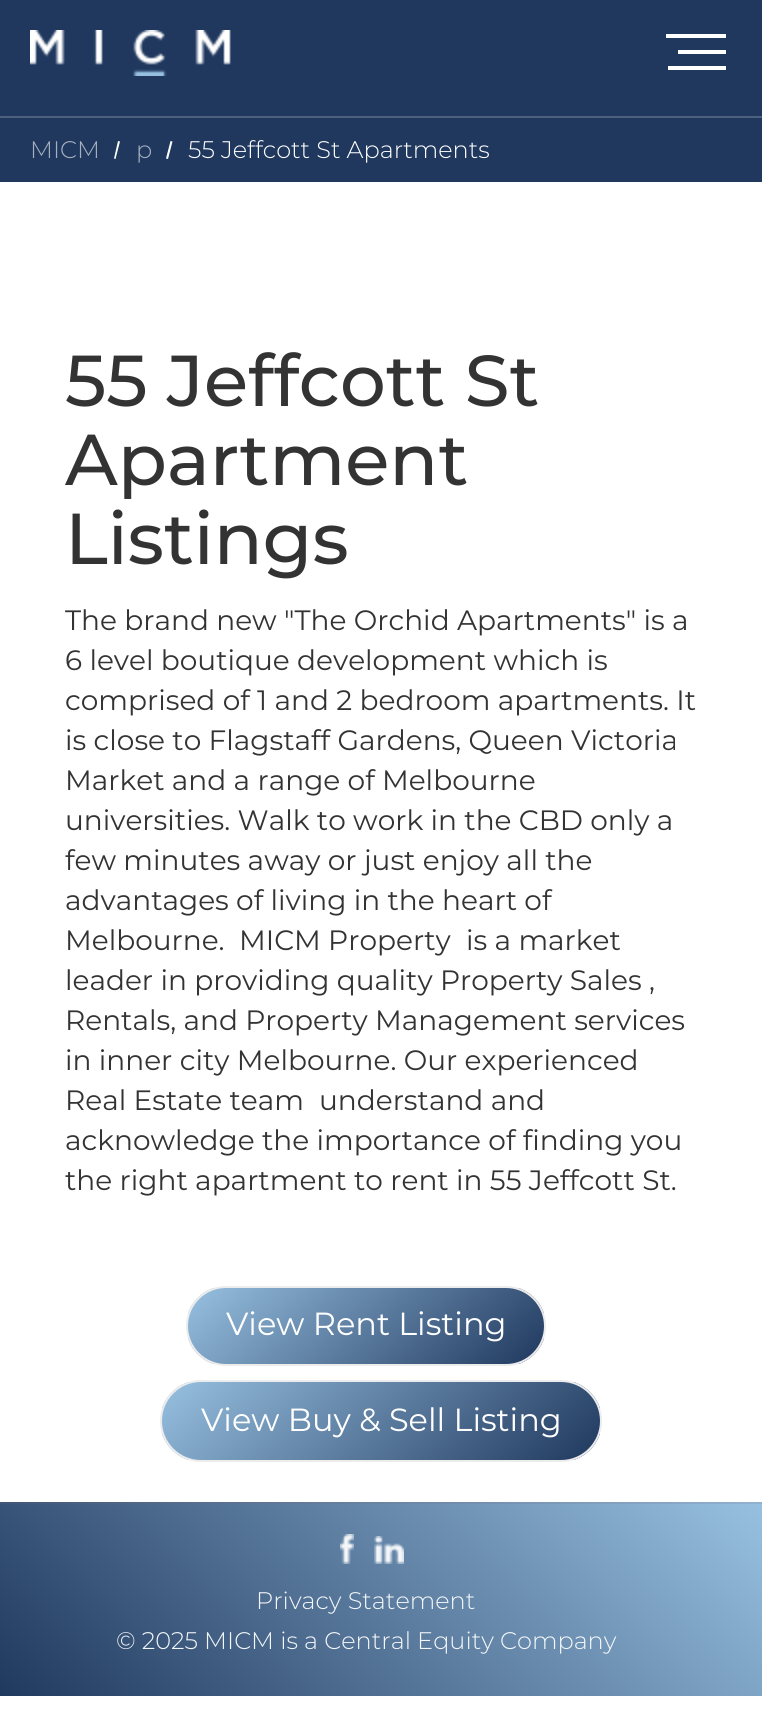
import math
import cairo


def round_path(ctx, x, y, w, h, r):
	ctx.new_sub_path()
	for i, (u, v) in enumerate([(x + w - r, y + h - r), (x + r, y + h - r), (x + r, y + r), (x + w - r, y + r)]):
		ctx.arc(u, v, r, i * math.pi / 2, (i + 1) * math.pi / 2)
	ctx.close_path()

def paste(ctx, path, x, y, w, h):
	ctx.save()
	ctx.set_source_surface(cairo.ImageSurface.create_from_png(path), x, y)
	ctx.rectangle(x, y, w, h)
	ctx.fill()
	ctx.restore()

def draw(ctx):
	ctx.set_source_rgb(1, 1, 1)
	ctx.paint()
	ctx.set_source_rgb(0.125, 0.22, 0.369)
	ctx.rectangle(0, 0, 762, 116)
	ctx.fill()
	ctx.set_source_rgb(0.302, 0.376, 0.494)
	ctx.rectangle(0, 116, 762, 2)
	ctx.fill()
	paste(ctx, 'media/1.png', 30, 30, 201, 46)
	ctx.set_source_rgb(1, 1, 1)
	ctx.rectangle(666, 34, 60, 4)
	ctx.rectangle(678, 50, 48, 4)
	ctx.rectangle(668, 66, 58, 4)
	ctx.fill()
	ctx.set_source_rgb(0.125, 0.22, 0.369)
	ctx.rectangle(0, 118, 762, 64)
	ctx.fill()
	ctx.select_font_face('Montserrat Light')
	ctx.set_font_size(24)
	ctx.set_source_rgb(0.651, 0.686, 0.749)
	ctx.move_to(30, 158)
	ctx.show_text('MICM')
	ctx.set_source_rgb(1, 1, 1)
	ctx.new_path()
	ctx.move_to(118, 141)
	ctx.line_to(120, 141.5)
	ctx.line_to(115.5, 159)
	ctx.line_to(114, 158.5)
	ctx.close_path()
	ctx.fill()
	ctx.set_source_rgb(0.651, 0.686, 0.749)
	ctx.move_to(136, 158)
	ctx.show_text('p')
	ctx.set_source_rgb(1, 1, 1)
	ctx.new_path()
	ctx.move_to(170.5, 141)
	ctx.line_to(172.5, 141.5)
	ctx.line_to(168, 159)
	ctx.line_to(166, 158.5)
	ctx.close_path()
	ctx.fill()
	ctx.move_to(188, 158)
	ctx.show_text('55 Jeffcott St Apartments')
	ctx.select_font_face('Montserrat Medium')
	ctx.set_font_size(72)
	ctx.set_source_rgb(0.2, 0.2, 0.2)
	for x, y, s in [
		(65, 406, '55 Jeffcott St'),
		(65, 485, 'Apartment'),
		(65, 564, 'Listings'),
	]:
		ctx.move_to(x, y)
		ctx.show_text(s)
	ctx.select_font_face('Montserrat')
	ctx.set_font_size(28)
	for x, y, s in [
		(65, 630, 'The brand new "The Orchid Apartments" is a'),
		(65, 670, '6 level boutique development which is'),
		(65, 710, 'comprised of 1 and 2 bedroom apartments. It'),
		(65, 750, 'is close to Flagstaff Gardens, Queen Victoria'),
		(65, 790, 'Market and a range of Melbourne'),
		(65, 830, 'universities. Walk to work in the CBD only a'),
		(65, 870, 'few minutes away or just enjoy all the'),
		(65, 910, 'advantages of living in the heart of'),
		(65, 950, 'Melbourne.'),
		(239, 950, 'MICM Property'),
		(466, 950, 'is a market'),
		(65, 990, 'leader in providing quality Property Sales ,'),
		(65, 1030, 'Rentals, and Property Management services'),
		(65, 1070, 'in inner city Melbourne. Our experienced'),
		(65, 1110, 'Real Estate team'),
		(319, 1110, 'understand and'),
		(65, 1150, 'acknowledge the importance of finding you'),
		(65, 1190, 'the right apartment to rent in 55 Jeffcott St.'),
	]:
		ctx.move_to(x, y)
		ctx.show_text(s)
	ctx.save()
	round_path(ctx, 186, 1286, 360, 80, 40)
	ctx.clip()
	gradient = cairo.LinearGradient(267, 1217, 465, 1435)
	gradient.add_color_stop_rgba(0, 0.592, 0.753, 0.878, 1)
	gradient.add_color_stop_rgba(1, 0.125, 0.22, 0.369, 1)
	ctx.set_source(gradient)
	ctx.rectangle(188, 1288, 356, 76)
	ctx.fill()
	ctx.restore()
	round_path(ctx, 187, 1287, 358, 78, 39)
	ctx.set_source_rgb(0.925, 0.925, 0.925)
	ctx.stroke()
	ctx.set_font_size(32)
	ctx.set_source_rgb(1, 1, 1)
	ctx.move_to(226, 1335)
	ctx.show_text('View Rent Listing')
	ctx.save()
	round_path(ctx, 160, 1380, 442, 82, 41)
	ctx.clip()
	gradient = cairo.LinearGradient(264, 1291, 498, 1551)
	gradient.add_color_stop_rgba(0, 0.592, 0.753, 0.878, 1)
	gradient.add_color_stop_rgba(1, 0.125, 0.22, 0.369, 1)
	ctx.set_source(gradient)
	ctx.rectangle(162, 1382, 438, 78)
	ctx.fill()
	ctx.restore()
	round_path(ctx, 161, 1381, 440, 80, 40)
	ctx.set_source_rgb(0.925, 0.925, 0.925)
	ctx.stroke()
	ctx.set_source_rgb(1, 1, 1)
	ctx.move_to(201, 1431)
	ctx.show_text('View Buy & Sell Listing')
	gradient = cairo.LinearGradient(620, 1170, 143, 1647)
	gradient.add_color_stop_rgba(0, 0.655, 0.788, 0.898, 1)
	gradient.add_color_stop_rgba(1, 0.255, 0.337, 0.463, 1)
	ctx.set_source(gradient)
	ctx.rectangle(0, 1502, 762, 2)
	ctx.fill()
	gradient = cairo.LinearGradient(620, 1362, 143, 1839)
	gradient.add_color_stop_rgba(0, 0.592, 0.753, 0.878, 1)
	gradient.add_color_stop_rgba(1, 0.125, 0.22, 0.369, 1)
	ctx.set_source(gradient)
	ctx.rectangle(0, 1504, 762, 192)
	ctx.fill()
	paste(ctx, 'media/2.png', 340, 1534, 14, 30)
	paste(ctx, 'media/3.png', 374, 1536, 30, 28)
	ctx.select_font_face('Montserrat Light')
	ctx.set_font_size(24)
	ctx.set_source_rgb(0.953, 0.965, 0.973)
	ctx.move_to(256, 1609)
	ctx.show_text('Privacy Statement')
	ctx.move_to(116, 1649)
	ctx.show_text('© 2025 MICM is a Central Equity Company')


surface = cairo.ImageSurface(cairo.FORMAT_RGB24, 762, 1714)
ctx = cairo.Context(surface)
options = cairo.FontOptions()
options.set_hint_metrics(cairo.HINT_METRICS_OFF)
options.set_hint_style(cairo.HINT_STYLE_NONE)
ctx.set_font_options(options)
ctx.set_miter_limit(4)
draw(ctx)
surface.write_to_png('image.png')
